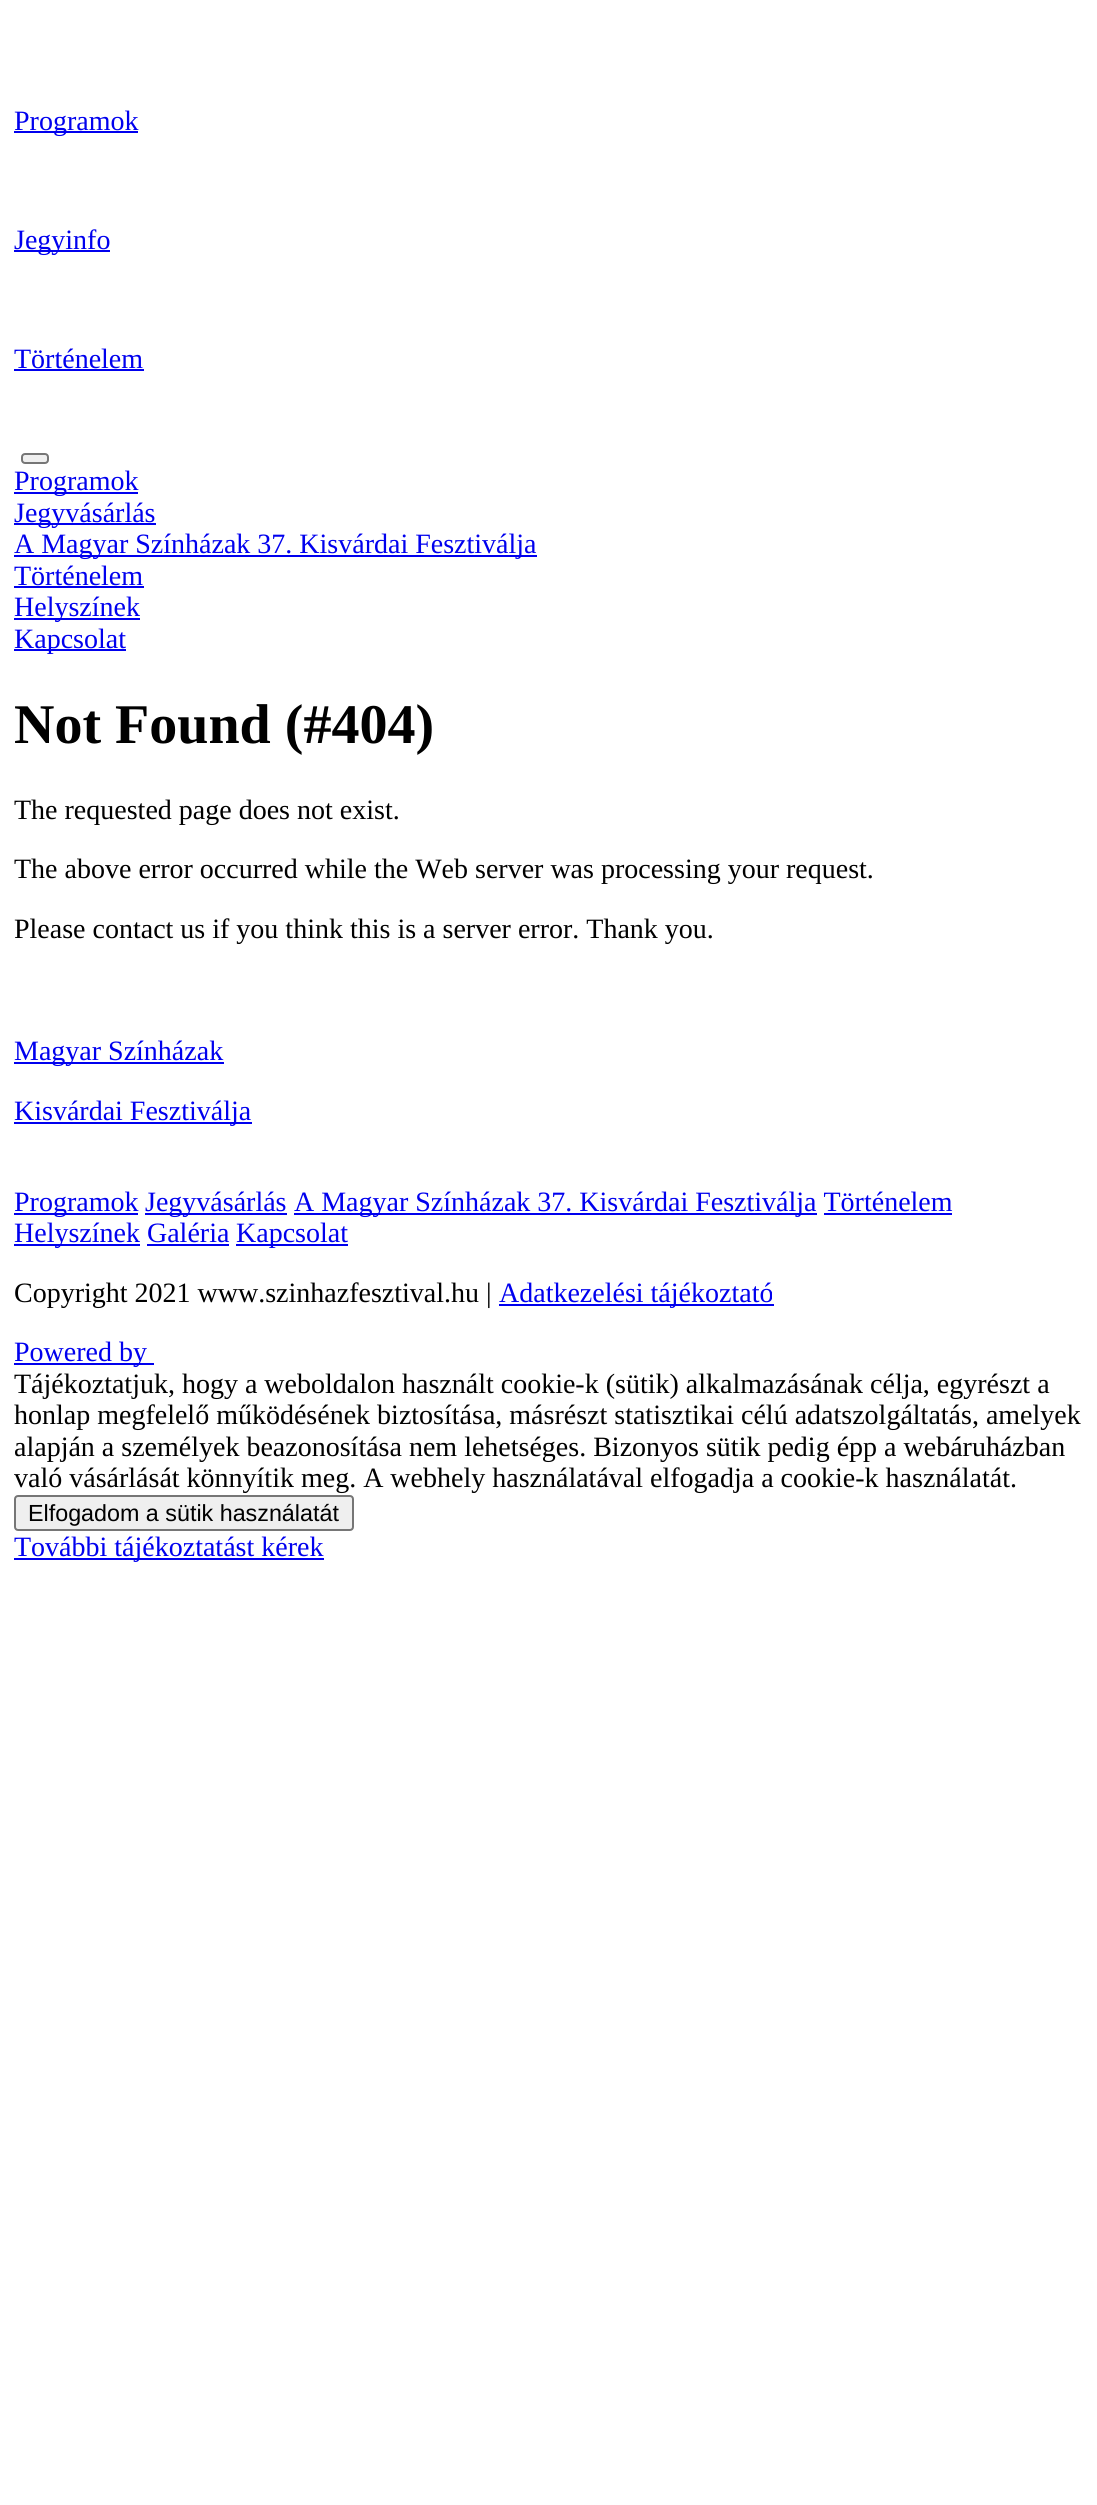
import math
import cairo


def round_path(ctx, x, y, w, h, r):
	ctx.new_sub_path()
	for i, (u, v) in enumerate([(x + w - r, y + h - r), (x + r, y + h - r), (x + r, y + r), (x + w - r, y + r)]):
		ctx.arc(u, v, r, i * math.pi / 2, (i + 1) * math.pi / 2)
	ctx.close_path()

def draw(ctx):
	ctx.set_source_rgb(1, 1, 1)
	ctx.paint()
	ctx.set_source_rgb(0, 0, 0.933)
	ctx.rectangle(14, 131, 124, 2)
	ctx.fill()
	ctx.select_font_face('Liberation Serif')
	ctx.set_font_size(28)
	ctx.move_to(14, 130)
	ctx.show_text('Programok')
	ctx.rectangle(14, 250, 96, 2)
	ctx.fill()
	ctx.move_to(14, 249)
	ctx.show_text('Jegyinfo')
	ctx.move_to(14, 368)
	ctx.show_text('Történelem')
	ctx.rectangle(14, 369, 130, 2)
	ctx.fill()
	ctx.set_source_rgb(0.937, 0.937, 0.937)
	round_path(ctx, 22, 454, 26, 9, 3)
	ctx.fill_preserve()
	ctx.set_source_rgb(0.463, 0.463, 0.463)
	ctx.stroke()
	ctx.set_source_rgb(0, 0, 0.933)
	ctx.rectangle(14, 492, 124, 2)
	ctx.fill()
	ctx.move_to(14, 490)
	ctx.show_text('Programok')
	ctx.rectangle(14, 523, 142, 2)
	ctx.fill()
	ctx.move_to(14, 522)
	ctx.show_text('Jegyvásárlás')
	ctx.rectangle(14, 555, 523, 2)
	ctx.fill()
	ctx.move_to(14, 553)
	ctx.show_text('A Magyar Színházak 37. Kisvárdai Fesztiválja')
	ctx.move_to(14, 585)
	ctx.show_text('Történelem')
	ctx.rectangle(14, 586, 130, 2)
	ctx.fill()
	ctx.rectangle(14, 618, 126, 2)
	ctx.fill()
	ctx.move_to(14, 616)
	ctx.show_text('Helyszínek')
	ctx.rectangle(14, 649, 112, 2)
	ctx.fill()
	ctx.move_to(14, 648)
	ctx.show_text('Kapcsolat')
	ctx.select_font_face('Liberation Serif', cairo.FONT_SLANT_NORMAL, cairo.FONT_WEIGHT_BOLD)
	ctx.set_font_size(56)
	ctx.set_source_rgb(0, 0, 0)
	ctx.move_to(14, 743)
	ctx.show_text('Not Found (#404)')
	ctx.select_font_face('Liberation Serif')
	ctx.set_font_size(28)
	for x, y, s in [
		(14, 819, 'The requested page does not exist.'),
		(14, 878, 'The above error occurred while the Web server was processing your request.'),
		(14, 938, 'Please contact us if you think this is a server error. Thank you.'),
	]:
		ctx.move_to(x, y)
		ctx.show_text(s)
	ctx.set_source_rgb(0, 0, 0.933)
	ctx.rectangle(14, 1062, 210, 2)
	ctx.fill()
	ctx.move_to(14, 1060)
	ctx.show_text('Magyar Színházak')
	ctx.rectangle(14, 1122, 238, 2)
	ctx.fill()
	ctx.move_to(14, 1120)
	ctx.show_text('Kisvárdai Fesztiválja')
	ctx.rectangle(14, 1213, 124, 2)
	ctx.fill()
	ctx.move_to(14, 1211)
	ctx.show_text('Programok')
	ctx.rectangle(145, 1213, 142, 2)
	ctx.fill()
	ctx.move_to(145, 1211)
	ctx.show_text('Jegyvásárlás')
	ctx.rectangle(294, 1213, 523, 2)
	ctx.fill()
	ctx.move_to(294, 1211)
	ctx.show_text('A Magyar Színházak 37. Kisvárdai Fesztiválja Történelem')
	ctx.rectangle(824, 1213, 128, 2)
	ctx.fill()
	ctx.rectangle(14, 1244, 126, 2)
	ctx.fill()
	ctx.move_to(14, 1242)
	ctx.show_text('Helyszínek Galéria')
	ctx.rectangle(236, 1244, 112, 2)
	ctx.fill()
	ctx.move_to(236, 1242)
	ctx.show_text('Kapcsolat')
	ctx.rectangle(147, 1244, 82, 2)
	ctx.fill()
	ctx.set_source_rgb(0, 0, 0)
	ctx.move_to(14, 1302)
	ctx.show_text('Copyright 2021 www.szinhazfesztival.hu |')
	ctx.set_source_rgb(0, 0, 0.933)
	ctx.rectangle(499, 1304, 275, 2)
	ctx.fill()
	ctx.move_to(499, 1302)
	ctx.show_text('Adatkezelési tájékoztató')
	ctx.rectangle(14, 1363, 140, 2)
	ctx.fill()
	ctx.move_to(14, 1361)
	ctx.show_text('Powered by')
	ctx.set_source_rgb(0, 0, 0)
	for x, y, s in [
		(14, 1393, 'Tájékoztatjuk, hogy a weboldalon használt cookie-k (sütik) alkalmazásának célja, egyrészt a'),
		(14, 1424, 'honlap megfelelő működésének biztosítása, másrészt statisztikai célú adatszolgáltatás, amelyek'),
		(14, 1456, 'alapján a személyek beazonosítása nem lehetséges. Bizonyos sütik pedig épp a webáruházban'),
		(14, 1487, 'való vásárlását könnyítik meg. A webhely használatával elfogadja a cookie-k használatát.'),
	]:
		ctx.move_to(x, y)
		ctx.show_text(s)
	ctx.set_source_rgb(0.937, 0.937, 0.937)
	round_path(ctx, 15, 1496, 338, 34, 3)
	ctx.fill_preserve()
	ctx.set_source_rgb(0.463, 0.463, 0.463)
	ctx.stroke()
	ctx.select_font_face('Liberation Sans')
	ctx.set_font_size(23.3)
	ctx.set_source_rgb(0, 0, 0)
	ctx.move_to(28, 1521)
	ctx.show_text('Elfogadom a sütik használatát')
	ctx.set_source_rgb(0, 0, 0.933)
	ctx.rectangle(14, 1558, 310, 2)
	ctx.fill()
	ctx.select_font_face('Liberation Serif')
	ctx.set_font_size(28)
	ctx.move_to(14, 1556)
	ctx.show_text('További tájékoztatást kérek')


surface = cairo.ImageSurface(cairo.FORMAT_RGB24, 1097, 2505)
ctx = cairo.Context(surface)
options = cairo.FontOptions()
options.set_hint_metrics(cairo.HINT_METRICS_OFF)
options.set_hint_style(cairo.HINT_STYLE_NONE)
ctx.set_font_options(options)
ctx.set_miter_limit(4)
draw(ctx)
surface.write_to_png('image.png')
